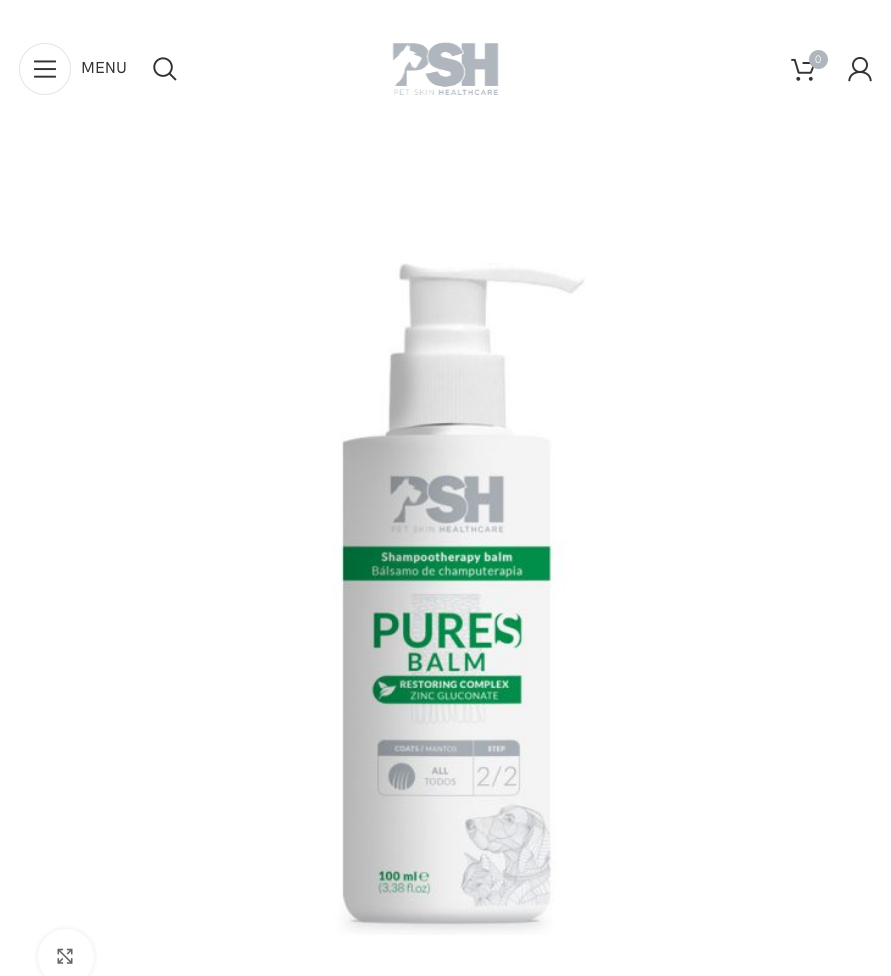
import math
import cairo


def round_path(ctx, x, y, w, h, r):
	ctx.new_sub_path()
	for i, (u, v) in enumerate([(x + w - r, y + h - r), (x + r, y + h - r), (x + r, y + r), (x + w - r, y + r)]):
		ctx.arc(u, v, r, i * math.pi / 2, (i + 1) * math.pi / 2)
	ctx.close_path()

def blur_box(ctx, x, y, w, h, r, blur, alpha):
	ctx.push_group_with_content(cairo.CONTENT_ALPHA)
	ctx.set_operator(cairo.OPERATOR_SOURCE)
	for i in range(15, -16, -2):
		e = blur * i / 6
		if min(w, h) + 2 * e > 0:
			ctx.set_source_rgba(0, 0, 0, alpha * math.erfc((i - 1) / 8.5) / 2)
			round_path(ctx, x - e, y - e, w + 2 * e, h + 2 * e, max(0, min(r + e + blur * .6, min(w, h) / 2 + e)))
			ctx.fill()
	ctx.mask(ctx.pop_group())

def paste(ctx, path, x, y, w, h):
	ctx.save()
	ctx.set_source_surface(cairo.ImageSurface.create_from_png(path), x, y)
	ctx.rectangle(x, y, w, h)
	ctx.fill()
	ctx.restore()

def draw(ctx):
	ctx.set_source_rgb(1, 1, 1)
	ctx.paint()
	paste(ctx, 'media/1.png', 392, 42, 107, 53)
	paste(ctx, 'media/2.png', 791, 58, 24, 23)
	ctx.set_source_rgb(0.682, 0.71, 0.737)
	ctx.arc(818.5, 59.5, 9.5, 0, 2 * math.pi)
	ctx.fill()
	ctx.select_font_face('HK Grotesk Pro')
	ctx.set_font_size(11)
	ctx.set_source_rgb(1, 1, 1)
	ctx.move_to(815, 63)
	ctx.show_text('0')
	paste(ctx, 'media/3.png', 848, 57, 24, 25)
	ctx.arc(45, 69, 25.5, 0, 2 * math.pi)
	ctx.set_source_rgb(0.894, 0.894, 0.894)
	ctx.set_line_width(1)
	ctx.stroke()
	paste(ctx, 'media/4.png', 34, 60, 22, 18)
	ctx.select_font_face('HK Grotesk Pro Medium')
	ctx.set_font_size(16)
	ctx.set_source_rgb(0.2, 0.2, 0.2)
	ctx.move_to(81, 73)
	ctx.show_text('MENU')
	paste(ctx, 'media/5.png', 153, 57, 24, 24)
	paste(ctx, 'media/6.png', 332, 263, 253, 672)
	ctx.set_source_rgb(0, 0, 0)
	blur_box(ctx, 38, 929, 56, 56, 28, 3, 0.08)
	ctx.set_source_rgb(1, 1, 1)
	ctx.arc(66, 957, 28, 0, 2 * math.pi)
	ctx.fill()
	paste(ctx, 'media/7.png', 57, 948, 16, 16)


surface = cairo.ImageSurface(cairo.FORMAT_RGB24, 891, 976)
ctx = cairo.Context(surface)
options = cairo.FontOptions()
options.set_hint_metrics(cairo.HINT_METRICS_OFF)
options.set_hint_style(cairo.HINT_STYLE_NONE)
ctx.set_font_options(options)
ctx.set_miter_limit(4)
draw(ctx)
surface.write_to_png('image.png')
